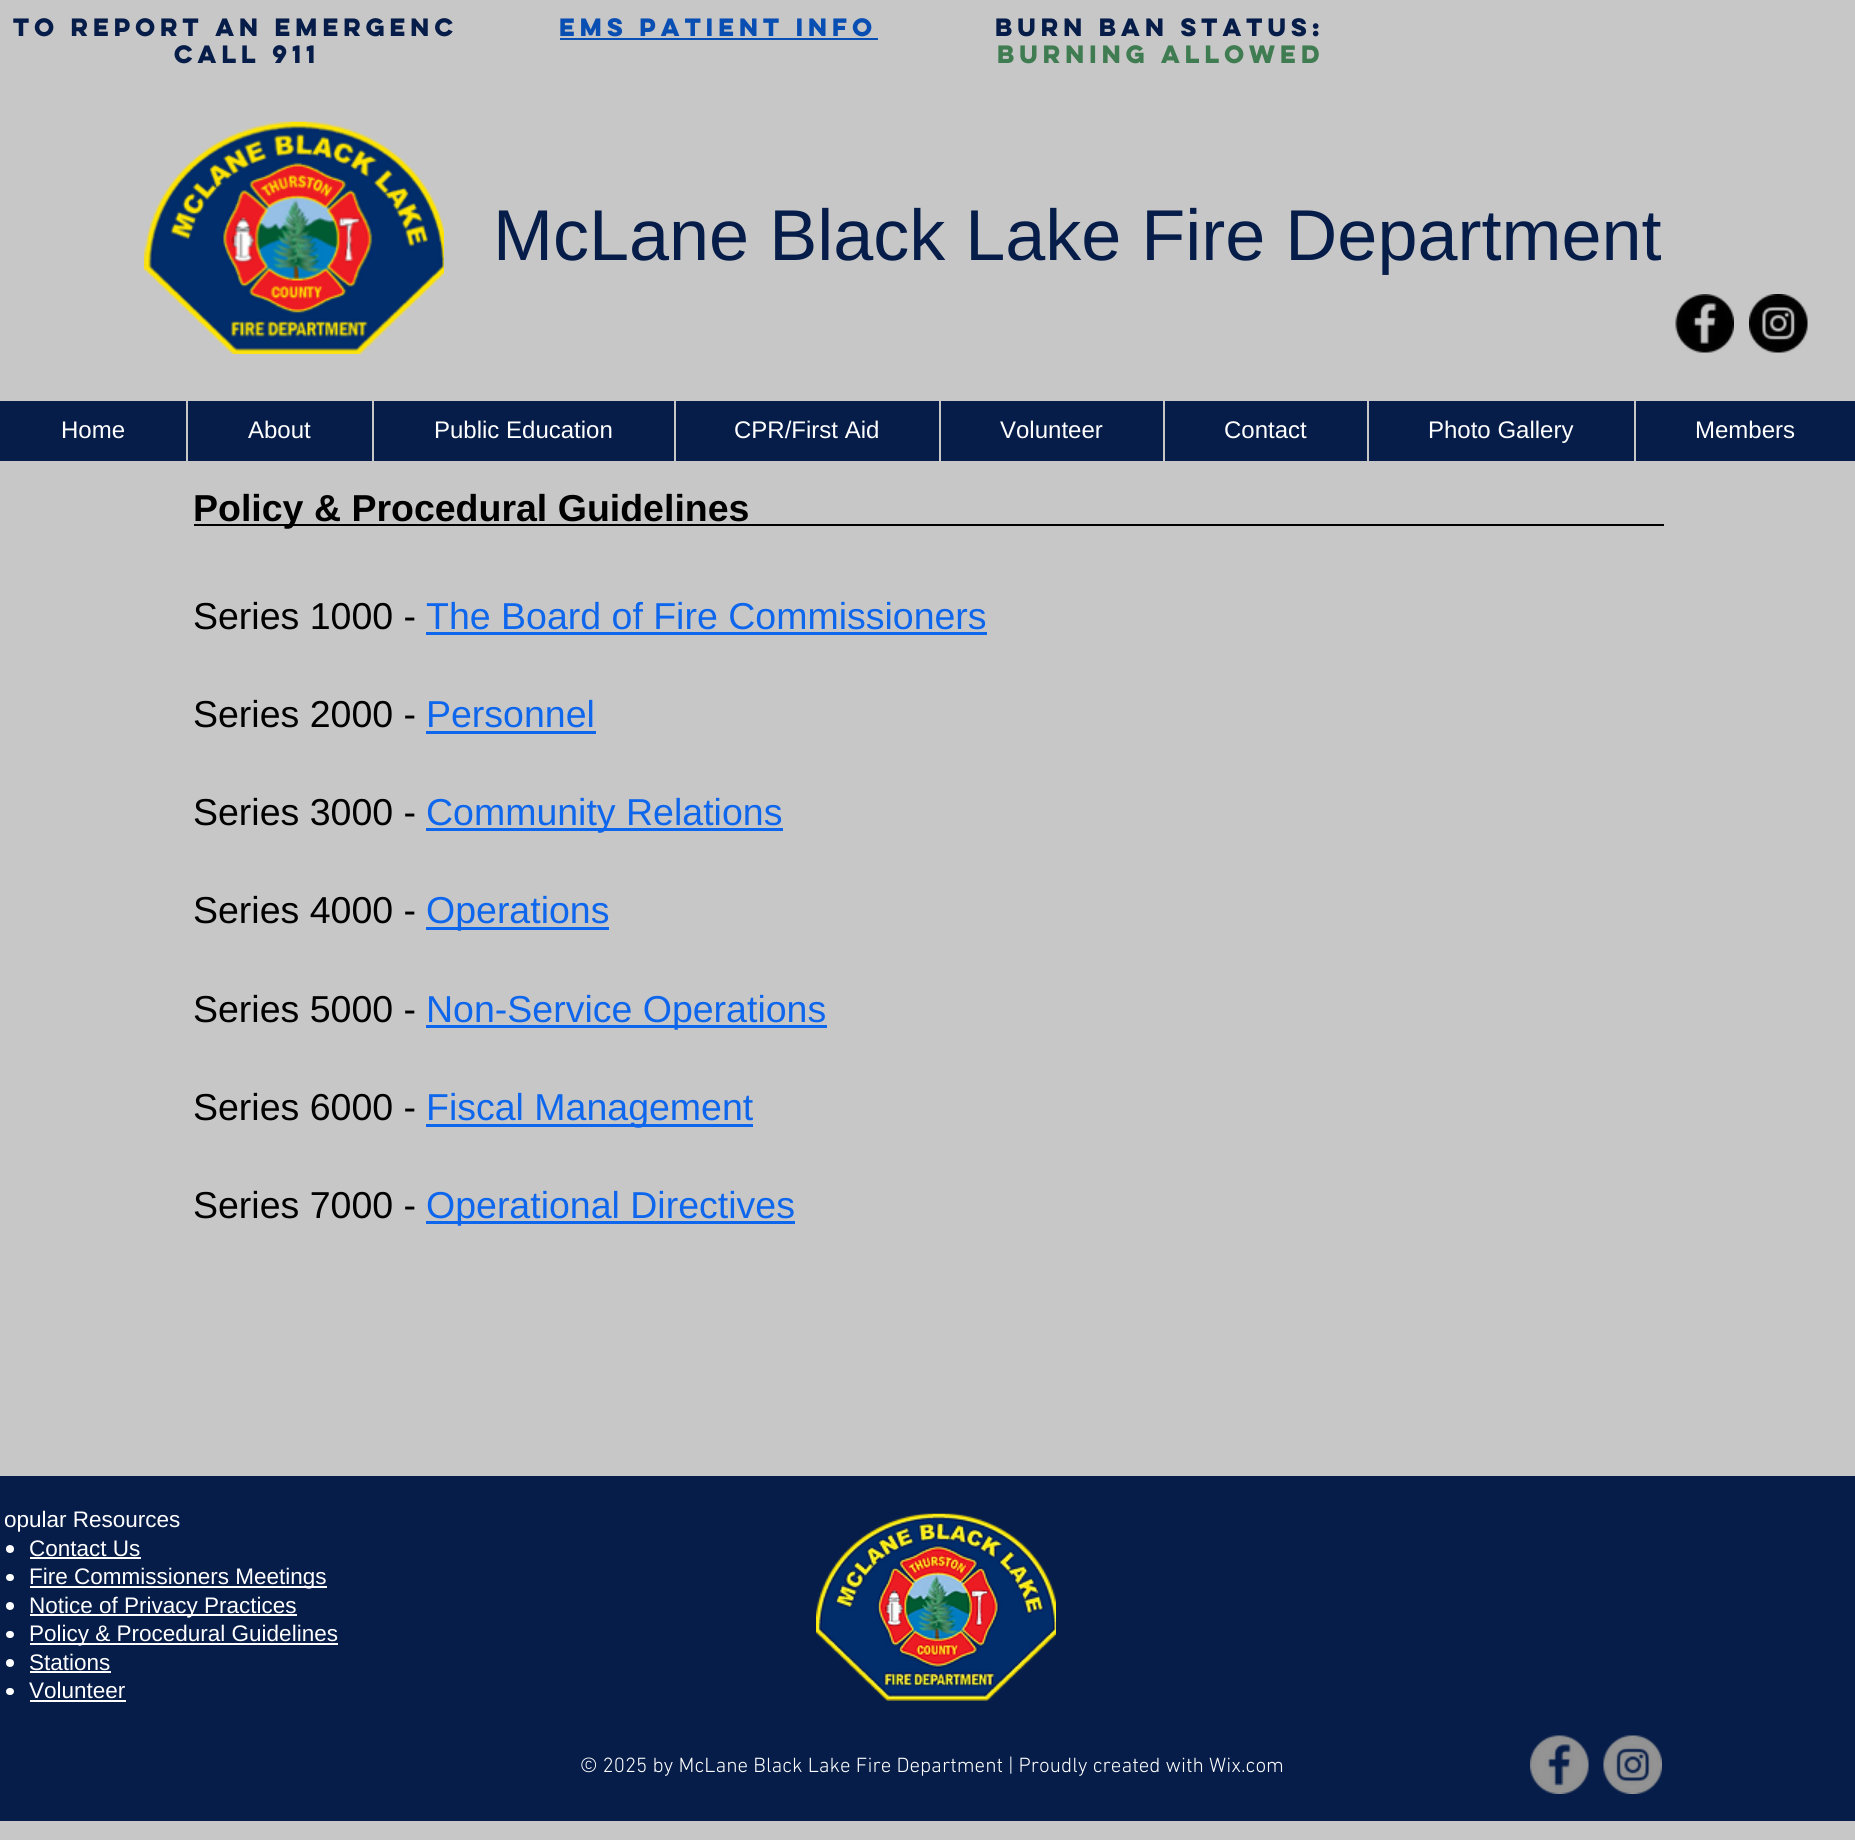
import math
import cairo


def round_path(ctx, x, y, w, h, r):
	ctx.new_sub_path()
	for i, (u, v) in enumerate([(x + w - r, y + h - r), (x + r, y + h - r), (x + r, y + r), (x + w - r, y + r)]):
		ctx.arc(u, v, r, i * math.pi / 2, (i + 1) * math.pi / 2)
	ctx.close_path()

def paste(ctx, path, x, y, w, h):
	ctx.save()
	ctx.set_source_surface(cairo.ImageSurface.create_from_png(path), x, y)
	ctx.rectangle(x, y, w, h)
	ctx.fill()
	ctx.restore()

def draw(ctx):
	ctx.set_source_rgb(0.78, 0.78, 0.78)
	ctx.paint()
	ctx.select_font_face('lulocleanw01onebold', cairo.FONT_SLANT_NORMAL, cairo.FONT_WEIGHT_BOLD)
	ctx.set_font_size(22.5)
	ctx.set_source_rgb(0.027, 0.114, 0.286)
	ctx.move_to(13, 36)
	ctx.show_text('to report an emergenc')
	ctx.move_to(174, 63)
	ctx.show_text('call 911')
	ctx.set_source_rgb(0.039, 0.306, 0.698)
	ctx.move_to(559, 36)
	ctx.show_text('EMS Patient Info')
	ctx.rectangle(560, 38, 318, 2)
	ctx.fill()
	ctx.set_source_rgb(0.027, 0.114, 0.286)
	ctx.move_to(995, 36)
	ctx.show_text('burn ban status:')
	ctx.set_source_rgb(0.251, 0.486, 0.318)
	ctx.move_to(997, 63)
	ctx.show_text('Burning ALLOWED')
	paste(ctx, 'media/1.png', 144, 121, 300, 233)
	ctx.select_font_face('Liberation Sans')
	ctx.set_font_size(72)
	ctx.set_source_rgb(0.027, 0.114, 0.286)
	ctx.move_to(493, 260)
	ctx.show_text('McLane Black Lake Fire Department')
	paste(ctx, 'media/2.png', 1675, 294, 59, 59)
	paste(ctx, 'media/3.png', 1749, 294, 59, 59)
	ctx.rectangle(0, 401, 1855, 60)
	ctx.fill()
	ctx.set_font_size(24)
	ctx.set_source_rgb(1, 1, 1)
	ctx.move_to(61, 438)
	ctx.show_text('Home')
	ctx.set_source_rgb(0.78, 0.78, 0.78)
	ctx.rectangle(186, 401, 2, 60)
	ctx.fill()
	ctx.set_source_rgb(1, 1, 1)
	ctx.move_to(248, 438)
	ctx.show_text('About')
	ctx.set_source_rgb(0.78, 0.78, 0.78)
	ctx.rectangle(372, 401, 2, 60)
	ctx.fill()
	ctx.set_source_rgb(1, 1, 1)
	ctx.move_to(434, 438)
	ctx.show_text('Public Education')
	ctx.set_source_rgb(0.78, 0.78, 0.78)
	ctx.rectangle(674, 401, 2, 60)
	ctx.fill()
	ctx.set_source_rgb(1, 1, 1)
	ctx.move_to(734, 438)
	ctx.show_text('CPR/First Aid')
	ctx.set_source_rgb(0.78, 0.78, 0.78)
	ctx.rectangle(939, 401, 2, 60)
	ctx.fill()
	ctx.set_source_rgb(1, 1, 1)
	ctx.move_to(1000, 438)
	ctx.show_text('Volunteer')
	ctx.set_source_rgb(0.78, 0.78, 0.78)
	ctx.rectangle(1163, 401, 2, 60)
	ctx.fill()
	ctx.set_source_rgb(1, 1, 1)
	ctx.move_to(1224, 438)
	ctx.show_text('Contact')
	ctx.set_source_rgb(0.78, 0.78, 0.78)
	ctx.rectangle(1367, 401, 2, 60)
	ctx.fill()
	ctx.set_source_rgb(1, 1, 1)
	ctx.move_to(1428, 438)
	ctx.show_text('Photo Gallery')
	ctx.set_source_rgb(0.78, 0.78, 0.78)
	ctx.rectangle(1634, 401, 2, 60)
	ctx.fill()
	ctx.set_source_rgb(1, 1, 1)
	ctx.move_to(1695, 438)
	ctx.show_text('Members')
	ctx.select_font_face('Liberation Sans', cairo.FONT_SLANT_NORMAL, cairo.FONT_WEIGHT_BOLD)
	ctx.set_font_size(37.5)
	ctx.set_source_rgb(0, 0, 0)
	ctx.move_to(193, 521)
	ctx.show_text('Policy & Procedural Guidelines')
	ctx.rectangle(194, 524, 1470, 2)
	ctx.fill()
	ctx.select_font_face('Liberation Sans')
	ctx.move_to(193, 629)
	ctx.show_text('Series 1000 -')
	ctx.set_source_rgb(0.055, 0.4, 0.922)
	ctx.move_to(426, 629)
	ctx.show_text('The Board of Fire Commissioners')
	ctx.rectangle(426, 632, 561, 3)
	ctx.fill()
	ctx.set_source_rgb(0, 0, 0)
	ctx.move_to(193, 727)
	ctx.show_text('Series 2000 -')
	ctx.set_source_rgb(0.055, 0.4, 0.922)
	ctx.move_to(426, 727)
	ctx.show_text('Personnel')
	ctx.rectangle(426, 731, 170, 3)
	ctx.fill()
	ctx.set_source_rgb(0, 0, 0)
	ctx.move_to(193, 825)
	ctx.show_text('Series 3000 -')
	ctx.set_source_rgb(0.055, 0.4, 0.922)
	ctx.rectangle(426, 828, 357, 3)
	ctx.fill()
	ctx.move_to(426, 825)
	ctx.show_text('Community Relations')
	ctx.set_source_rgb(0, 0, 0)
	ctx.move_to(193, 923)
	ctx.show_text('Series 4000 -')
	ctx.set_source_rgb(0.055, 0.4, 0.922)
	ctx.rectangle(426, 927, 183, 3)
	ctx.fill()
	ctx.move_to(426, 923)
	ctx.show_text('Operations')
	ctx.set_source_rgb(0, 0, 0)
	ctx.move_to(193, 1022)
	ctx.show_text('Series 5000 -')
	ctx.set_source_rgb(0.055, 0.4, 0.922)
	ctx.rectangle(426, 1025, 401, 3)
	ctx.fill()
	ctx.move_to(426, 1022)
	ctx.show_text('Non-Service Operations')
	ctx.set_source_rgb(0, 0, 0)
	ctx.move_to(193, 1120)
	ctx.show_text('Series 6000 -')
	ctx.set_source_rgb(0.055, 0.4, 0.922)
	ctx.rectangle(426, 1124, 327, 3)
	ctx.fill()
	ctx.move_to(426, 1120)
	ctx.show_text('Fiscal Management')
	ctx.set_source_rgb(0, 0, 0)
	ctx.move_to(193, 1218)
	ctx.show_text('Series 7000 -')
	ctx.set_source_rgb(0.055, 0.4, 0.922)
	ctx.rectangle(426, 1221, 369, 3)
	ctx.fill()
	ctx.move_to(426, 1218)
	ctx.show_text('Operational Directives')
	ctx.set_source_rgb(0.027, 0.114, 0.286)
	ctx.rectangle(0, 1476, 1855, 345)
	ctx.fill()
	ctx.set_font_size(22.5)
	ctx.set_source_rgb(1, 1, 1)
	ctx.move_to(4, 1527)
	ctx.show_text('opular Resources')
	ctx.new_path()
	ctx.arc(10, 1549, 4, 0, 2 * math.pi)
	ctx.fill()
	ctx.move_to(29, 1556)
	ctx.show_text('Contact Us')
	ctx.rectangle(30, 1557, 111, 2)
	ctx.fill()
	round_path(ctx, 6, 1574, 8, 7, 3.5)
	ctx.fill()
	ctx.rectangle(30, 1586, 297, 2)
	ctx.fill()
	ctx.move_to(29, 1584)
	ctx.show_text('Fire Commissioners Meetings')
	ctx.new_path()
	ctx.arc(10, 1606, 4, 0, 2 * math.pi)
	ctx.fill()
	ctx.rectangle(30, 1614, 267, 2)
	ctx.fill()
	ctx.move_to(29, 1613)
	ctx.show_text('Notice of Privacy Practices')
	round_path(ctx, 6, 1631, 8, 7, 3.5)
	ctx.fill()
	ctx.rectangle(30, 1643, 308, 2)
	ctx.fill()
	ctx.move_to(29, 1641)
	ctx.show_text('Policy & Procedural Guidelines')
	ctx.new_path()
	ctx.arc(10, 1663, 4, 0, 2 * math.pi)
	ctx.fill()
	ctx.move_to(29, 1670)
	ctx.show_text('Stations')
	ctx.rectangle(30, 1671, 81, 2)
	ctx.fill()
	round_path(ctx, 6, 1688, 8, 7, 3.5)
	ctx.fill()
	ctx.move_to(29, 1698)
	ctx.show_text('Volunteer')
	ctx.rectangle(30, 1700, 96, 2)
	ctx.fill()
	paste(ctx, 'media/4.png', 816, 1513, 240, 188)
	ctx.select_font_face('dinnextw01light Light')
	ctx.set_font_size(21)
	ctx.move_to(580, 1772)
	ctx.show_text('© 2025 by McLane Black Lake Fire Department | Proudly created with Wix.com')
	paste(ctx, 'media/5.png', 1530, 1735, 59, 59)
	paste(ctx, 'media/6.png', 1603, 1735, 59, 59)


surface = cairo.ImageSurface(cairo.FORMAT_RGB24, 1855, 1840)
ctx = cairo.Context(surface)
options = cairo.FontOptions()
options.set_hint_metrics(cairo.HINT_METRICS_OFF)
options.set_hint_style(cairo.HINT_STYLE_NONE)
ctx.set_font_options(options)
ctx.set_miter_limit(4)
draw(ctx)
surface.write_to_png('image.png')
